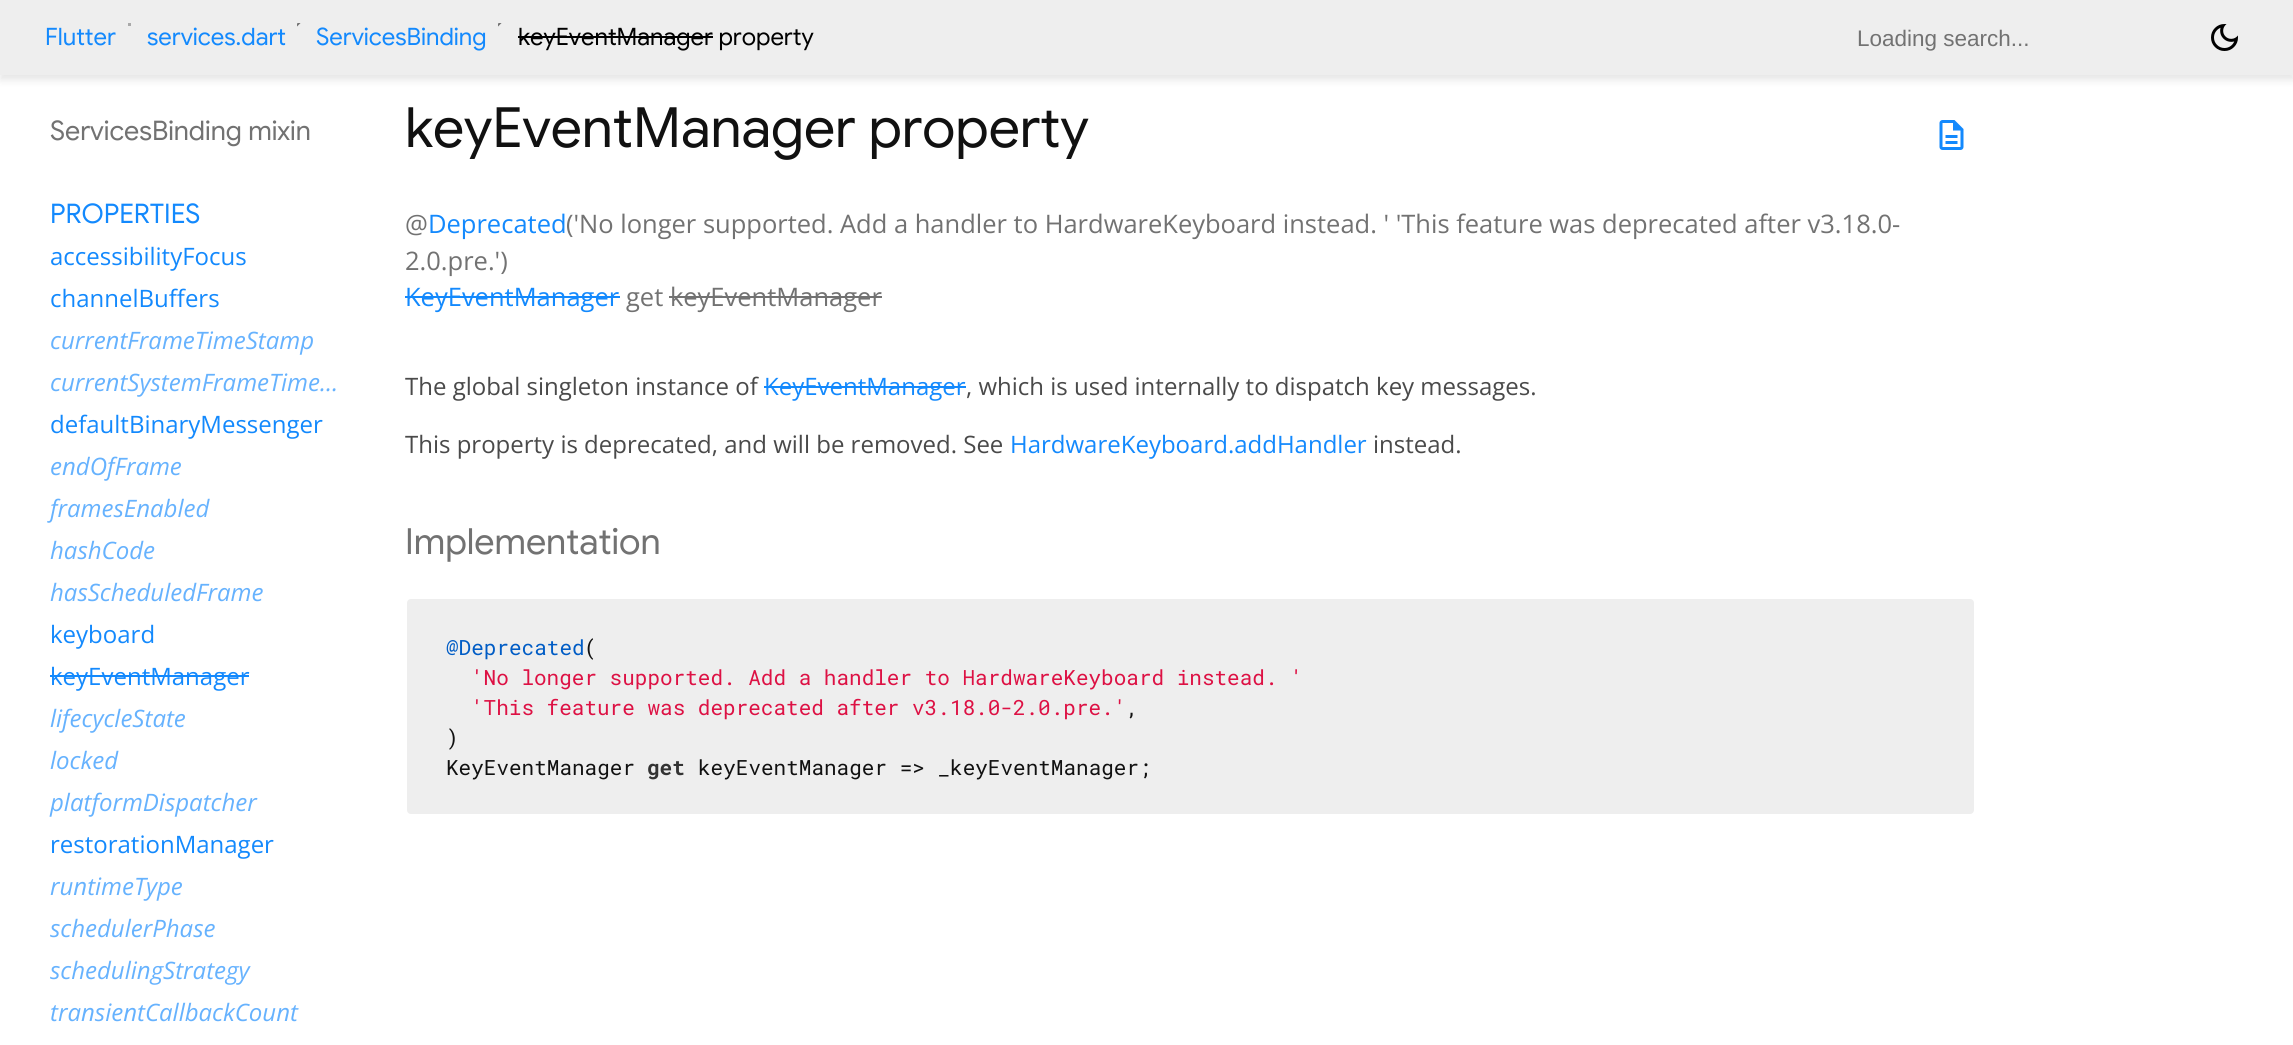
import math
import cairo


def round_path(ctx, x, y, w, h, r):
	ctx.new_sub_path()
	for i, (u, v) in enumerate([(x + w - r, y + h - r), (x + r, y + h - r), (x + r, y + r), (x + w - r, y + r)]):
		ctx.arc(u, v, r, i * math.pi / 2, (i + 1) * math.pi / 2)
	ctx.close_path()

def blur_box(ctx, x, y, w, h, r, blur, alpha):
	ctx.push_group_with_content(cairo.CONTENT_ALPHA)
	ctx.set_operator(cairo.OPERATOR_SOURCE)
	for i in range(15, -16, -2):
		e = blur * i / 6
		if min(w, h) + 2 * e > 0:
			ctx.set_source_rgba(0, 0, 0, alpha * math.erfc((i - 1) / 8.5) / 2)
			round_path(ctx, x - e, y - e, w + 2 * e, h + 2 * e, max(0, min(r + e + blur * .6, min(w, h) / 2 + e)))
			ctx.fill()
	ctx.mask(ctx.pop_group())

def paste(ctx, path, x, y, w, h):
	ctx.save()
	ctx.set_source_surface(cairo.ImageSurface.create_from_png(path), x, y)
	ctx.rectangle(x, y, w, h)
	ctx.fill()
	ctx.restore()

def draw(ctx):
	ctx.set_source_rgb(1, 1, 1)
	ctx.paint()
	ctx.set_source_rgb(0, 0, 0)
	blur_box(ctx, 0, 5, 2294, 75, 0, 4, 0.1)
	ctx.set_source_rgb(0.933, 0.933, 0.933)
	ctx.rectangle(0, 0, 2293, 75)
	ctx.fill()
	ctx.select_font_face('Google Sans')
	ctx.set_font_size(24)
	ctx.set_source_rgb(0.075, 0.537, 0.992)
	ctx.move_to(45, 45)
	ctx.show_text('Flutter')
	ctx.set_source_rgb(0.663, 0.663, 0.663)
	ctx.rectangle(128, 23, 3, 3)
	ctx.fill()
	ctx.set_source_rgb(0.075, 0.537, 0.992)
	ctx.move_to(147, 45)
	ctx.show_text('services.dart')
	paste(ctx, 'media/1.png', 297, 23, 4, 4)
	ctx.move_to(316, 45)
	ctx.show_text('ServicesBinding')
	paste(ctx, 'media/1.png', 498, 23, 4, 4)
	ctx.set_source_rgb(0, 0, 0)
	ctx.move_to(518, 45)
	ctx.show_text('keyEventManager property')
	ctx.rectangle(518, 36, 195, 2)
	ctx.fill()
	ctx.select_font_face('Liberation Sans')
	ctx.set_font_size(22.5)
	ctx.set_source_rgb(0.447, 0.447, 0.447)
	ctx.move_to(1857, 46)
	ctx.show_text('Loading search...')
	paste(ctx, 'media/2.png', 2211, 24, 27, 27)
	ctx.select_font_face('Google Sans')
	ctx.set_font_size(27)
	ctx.move_to(50, 140)
	ctx.show_text('ServicesBinding mixin')
	ctx.set_source_rgb(0.075, 0.537, 0.992)
	ctx.move_to(50, 223)
	ctx.show_text('PROPERTIES')
	ctx.select_font_face('Open Sans')
	ctx.set_font_size(24)
	ctx.move_to(50, 265)
	ctx.show_text('accessibilityFocus')
	ctx.move_to(50, 307)
	ctx.show_text('channelBuffers')
	ctx.select_font_face('Open Sans', cairo.FONT_SLANT_ITALIC)
	ctx.set_source_rgb(0.4, 0.698, 0.996)
	ctx.move_to(50, 349)
	ctx.show_text('currentFrameTimeStamp')
	ctx.move_to(50, 391)
	ctx.show_text('currentSystemFrameTime…')
	ctx.select_font_face('Open Sans')
	ctx.set_source_rgb(0.075, 0.537, 0.992)
	ctx.move_to(50, 433)
	ctx.show_text('defaultBinaryMessenger')
	ctx.select_font_face('Open Sans', cairo.FONT_SLANT_ITALIC)
	ctx.set_source_rgb(0.4, 0.698, 0.996)
	for x, y, s in [
		(50, 475, 'endOfFrame'),
		(50, 517, 'framesEnabled'),
		(50, 559, 'hashCode'),
		(50, 601, 'hasScheduledFrame'),
	]:
		ctx.move_to(x, y)
		ctx.show_text(s)
	ctx.select_font_face('Open Sans')
	ctx.set_source_rgb(0.075, 0.537, 0.992)
	ctx.move_to(50, 643)
	ctx.show_text('keyboard')
	ctx.move_to(50, 685)
	ctx.show_text('keyEventManager')
	ctx.rectangle(50, 675, 199, 2)
	ctx.fill()
	ctx.select_font_face('Open Sans', cairo.FONT_SLANT_ITALIC)
	ctx.set_source_rgb(0.4, 0.698, 0.996)
	for x, y, s in [
		(50, 727, 'lifecycleState'),
		(50, 769, 'locked'),
		(50, 811, 'platformDispatcher'),
	]:
		ctx.move_to(x, y)
		ctx.show_text(s)
	ctx.select_font_face('Open Sans')
	ctx.set_source_rgb(0.075, 0.537, 0.992)
	ctx.move_to(50, 853)
	ctx.show_text('restorationManager')
	ctx.select_font_face('Open Sans', cairo.FONT_SLANT_ITALIC)
	ctx.set_source_rgb(0.4, 0.698, 0.996)
	for x, y, s in [
		(50, 895, 'runtimeType'),
		(50, 937, 'schedulerPhase'),
		(50, 979, 'schedulingStrategy'),
		(50, 1021, 'transientCallbackCount'),
	]:
		ctx.move_to(x, y)
		ctx.show_text(s)
	ctx.select_font_face('Google Sans')
	ctx.set_font_size(55.5)
	ctx.set_source_rgb(0.067, 0.067, 0.067)
	ctx.move_to(405, 147)
	ctx.show_text('keyEventManager property')
	paste(ctx, 'media/3.png', 1939, 120, 25, 30)
	ctx.select_font_face('Open Sans')
	ctx.set_font_size(25.5)
	ctx.set_source_rgb(0.447, 0.447, 0.447)
	ctx.move_to(405, 233)
	ctx.show_text('@')
	ctx.set_source_rgb(0.075, 0.537, 0.992)
	ctx.move_to(428, 233)
	ctx.show_text('Deprecated')
	ctx.set_source_rgb(0.447, 0.447, 0.447)
	ctx.move_to(566, 233)
	ctx.show_text('(\'No longer supported. Add a handler to HardwareKeyboard instead. \' \'This feature was deprecated after v3.18.0-')
	ctx.move_to(405, 270)
	ctx.show_text('2.0.pre.\')')
	ctx.set_source_rgb(0.075, 0.537, 0.992)
	ctx.move_to(405, 306)
	ctx.show_text('KeyEventManager')
	ctx.rectangle(405, 296, 215, 2)
	ctx.fill()
	ctx.set_source_rgb(0.447, 0.447, 0.447)
	ctx.move_to(626, 306)
	ctx.show_text('get keyEventManager')
	ctx.rectangle(669, 296, 213, 2)
	ctx.fill()
	ctx.set_font_size(24)
	ctx.set_source_rgb(0.29, 0.29, 0.29)
	ctx.move_to(405, 395)
	ctx.show_text('The global singleton instance of')
	ctx.set_source_rgb(0.075, 0.537, 0.992)
	ctx.move_to(764, 395)
	ctx.show_text('KeyEventManager')
	ctx.rectangle(764, 386, 202, 2)
	ctx.fill()
	ctx.set_source_rgb(0.29, 0.29, 0.29)
	ctx.move_to(966, 395)
	ctx.show_text(', which is used internally to dispatch key messages.')
	ctx.move_to(405, 453)
	ctx.show_text('This property is deprecated, and will be removed. See')
	ctx.set_source_rgb(0.075, 0.537, 0.992)
	ctx.move_to(1010, 453)
	ctx.show_text('HardwareKeyboard.addHandler')
	ctx.set_source_rgb(0.29, 0.29, 0.29)
	ctx.move_to(1373, 453)
	ctx.show_text('instead.')
	ctx.select_font_face('Google Sans')
	ctx.set_font_size(36)
	ctx.set_source_rgb(0.447, 0.447, 0.447)
	ctx.move_to(405, 554)
	ctx.show_text('Implementation')
	ctx.set_source_rgb(0.933, 0.933, 0.933)
	round_path(ctx, 406, 598, 1569, 217, 5)
	ctx.fill_preserve()
	ctx.set_source_rgb(1, 1, 1)
	ctx.stroke()
	ctx.select_font_face('Roboto Mono')
	ctx.set_font_size(21)
	ctx.set_source_rgb(0, 0.361, 0.773)
	ctx.move_to(446, 655)
	ctx.show_text('@Deprecated')
	ctx.set_source_rgb(0.067, 0.067, 0.067)
	ctx.move_to(584, 655)
	ctx.show_text('(')
	ctx.set_source_rgb(0.867, 0.067, 0.267)
	ctx.move_to(471, 685)
	ctx.show_text('\'No longer supported. Add a handler to HardwareKeyboard instead. \'')
	ctx.move_to(471, 715)
	ctx.show_text('\'This feature was deprecated after v3.18.0-2.0.pre.\'')
	ctx.set_source_rgb(0.067, 0.067, 0.067)
	for x, y, s in [
		(1126, 715, ','),
		(446, 745, ')'),
		(446, 775, 'KeyEventManager'),
	]:
		ctx.move_to(x, y)
		ctx.show_text(s)
	ctx.select_font_face('Roboto Mono', cairo.FONT_SLANT_NORMAL, cairo.FONT_WEIGHT_BOLD)
	ctx.set_source_rgb(0.2, 0.2, 0.2)
	ctx.move_to(647, 775)
	ctx.show_text('get')
	ctx.select_font_face('Roboto Mono')
	ctx.set_source_rgb(0.067, 0.067, 0.067)
	ctx.move_to(698, 775)
	ctx.show_text('keyEventManager => _keyEventManager;')


surface = cairo.ImageSurface(cairo.FORMAT_RGB24, 2293, 1045)
ctx = cairo.Context(surface)
options = cairo.FontOptions()
options.set_hint_metrics(cairo.HINT_METRICS_OFF)
options.set_hint_style(cairo.HINT_STYLE_NONE)
ctx.set_font_options(options)
ctx.set_miter_limit(4)
draw(ctx)
surface.write_to_png('image.png')
